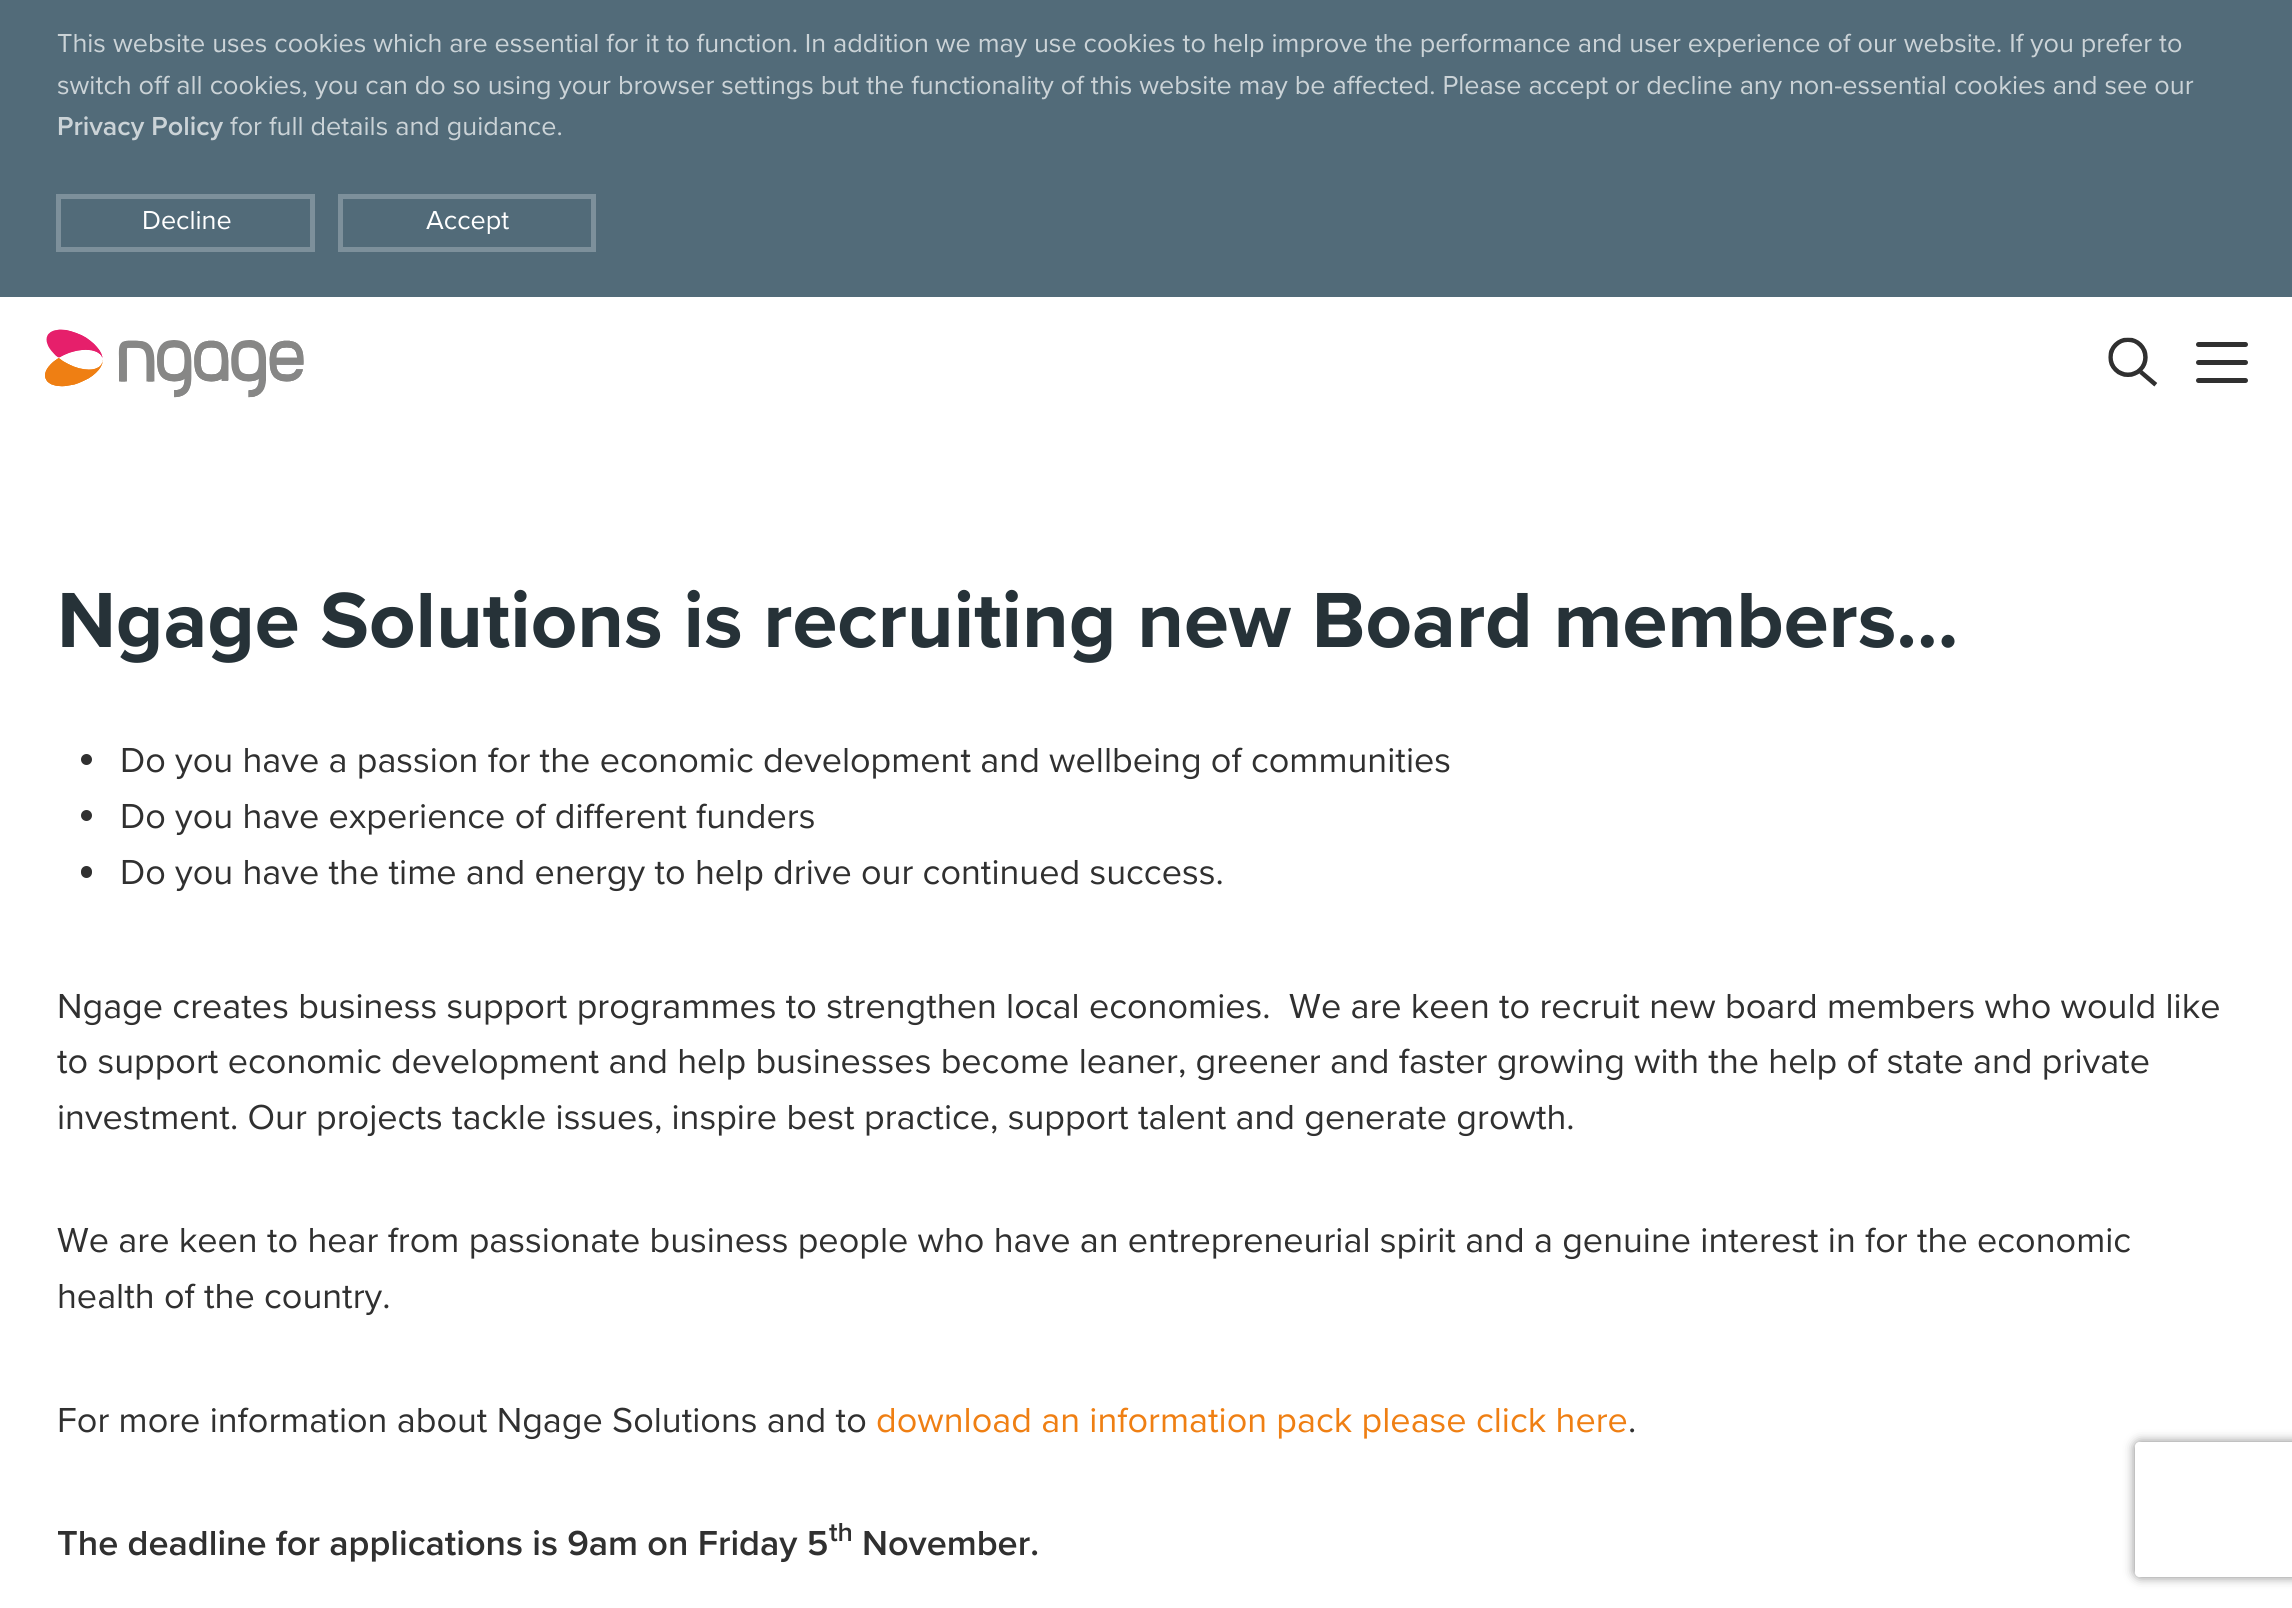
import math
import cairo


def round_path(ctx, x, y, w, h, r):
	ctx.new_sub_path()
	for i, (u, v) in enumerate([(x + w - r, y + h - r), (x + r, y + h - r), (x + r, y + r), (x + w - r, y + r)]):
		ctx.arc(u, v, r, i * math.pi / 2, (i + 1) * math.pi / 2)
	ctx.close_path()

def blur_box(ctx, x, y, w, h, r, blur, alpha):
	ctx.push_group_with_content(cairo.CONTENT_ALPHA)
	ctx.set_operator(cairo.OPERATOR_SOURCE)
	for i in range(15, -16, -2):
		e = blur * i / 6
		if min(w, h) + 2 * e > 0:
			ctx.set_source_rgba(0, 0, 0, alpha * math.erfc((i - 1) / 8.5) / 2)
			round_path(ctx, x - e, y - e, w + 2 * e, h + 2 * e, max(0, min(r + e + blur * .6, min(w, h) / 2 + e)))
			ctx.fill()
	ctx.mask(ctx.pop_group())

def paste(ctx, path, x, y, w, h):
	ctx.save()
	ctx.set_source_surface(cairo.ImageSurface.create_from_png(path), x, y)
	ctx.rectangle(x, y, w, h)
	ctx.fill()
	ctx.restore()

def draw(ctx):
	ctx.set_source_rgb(1, 1, 1)
	ctx.paint()
	ctx.set_source_rgb(0.322, 0.42, 0.475)
	ctx.rectangle(0, 0, 2292, 297)
	ctx.fill()
	ctx.select_font_face('Proxima Nova')
	ctx.set_font_size(27)
	ctx.set_source_rgb(0.796, 0.827, 0.843)
	ctx.move_to(57, 52)
	ctx.show_text('This website uses cookies which are essential for it to function. In addition we may use cookies to help improve the performance and user experience of our website. If you prefer to')
	ctx.move_to(57, 94)
	ctx.show_text('switch off all cookies, you can do so using your browser settings but the functionality of this website may be affected. Please accept or decline any non-essential cookies and see our')
	ctx.select_font_face('Proxima Nova SemiBold')
	ctx.move_to(57, 135)
	ctx.show_text('Privacy Policy')
	ctx.select_font_face('Proxima Nova')
	ctx.move_to(230, 135)
	ctx.show_text('for full details and guidance.')
	ctx.rectangle(58.5, 196.5, 254, 53)
	ctx.set_source_rgb(0.49, 0.565, 0.608)
	ctx.set_line_width(5)
	ctx.stroke()
	ctx.set_source_rgb(1, 1, 1)
	ctx.move_to(142, 229)
	ctx.show_text('Decline')
	ctx.rectangle(340.5, 196.5, 253, 53)
	ctx.set_source_rgb(0.49, 0.565, 0.608)
	ctx.stroke()
	ctx.set_source_rgb(1, 1, 1)
	ctx.move_to(426, 229)
	ctx.show_text('Accept')
	paste(ctx, 'media/1.png', 45, 329, 259, 69)
	paste(ctx, 'media/2.png', 2108, 337, 50, 50)
	ctx.set_source_rgb(0.188, 0.188, 0.188)
	round_path(ctx, 2196, 342, 52, 5, 2.5)
	ctx.fill()
	round_path(ctx, 2196, 360, 52, 5, 2.5)
	ctx.fill()
	round_path(ctx, 2196, 378, 52, 5, 2.5)
	ctx.fill()
	ctx.select_font_face('Proxima Nova', cairo.FONT_SLANT_NORMAL, cairo.FONT_WEIGHT_BOLD)
	ctx.set_font_size(81)
	ctx.set_source_rgb(0.149, 0.196, 0.22)
	ctx.move_to(57, 647)
	ctx.show_text('Ngage Solutions is recruiting new Board members…')
	ctx.set_source_rgb(0.188, 0.188, 0.188)
	ctx.new_path()
	ctx.arc(86.5, 759.5, 5.5, 0, 2 * math.pi)
	ctx.fill()
	ctx.select_font_face('Proxima Nova')
	ctx.set_font_size(36)
	ctx.move_to(120, 772)
	ctx.show_text('Do you have a passion for the economic development and wellbeing of communities')
	ctx.new_path()
	ctx.arc(86.5, 815.5, 5.5, 0, 2 * math.pi)
	ctx.fill()
	ctx.move_to(120, 828)
	ctx.show_text('Do you have experience of different funders')
	round_path(ctx, 81, 866, 11, 12, 5.5)
	ctx.fill()
	for x, y, s in [
		(120, 884, 'Do you have the time and energy to help drive our continued success.'),
		(57, 1018, 'Ngage creates business support programmes to strengthen local economies.  We are keen to recruit new board members who would like'),
		(57, 1073, 'to support economic development and help businesses become leaner, greener and faster growing with the help of state and private'),
		(57, 1129, 'investment. Our projects tackle issues, inspire best practice, support talent and generate growth.'),
		(57, 1252, 'We are keen to hear from passionate business people who have an entrepreneurial spirit and a genuine interest in for the economic'),
		(57, 1308, 'health of the country.'),
		(57, 1432, 'For more information about Ngage Solutions and to'),
	]:
		ctx.move_to(x, y)
		ctx.show_text(s)
	ctx.set_source_rgb(0.937, 0.498, 0.075)
	ctx.move_to(876, 1432)
	ctx.show_text('download an information pack please click here')
	ctx.set_source_rgb(0.188, 0.188, 0.188)
	ctx.move_to(1628, 1432)
	ctx.show_text('.')
	ctx.select_font_face('Proxima Nova SemiBold')
	ctx.move_to(57, 1555)
	ctx.show_text('The deadline for applications is 9am on Friday 5')
	ctx.set_font_size(27)
	ctx.move_to(829, 1541)
	ctx.show_text('th')
	ctx.set_font_size(36)
	ctx.move_to(862, 1555)
	ctx.show_text('November.')
	ctx.save()
	ctx.set_fill_rule(cairo.FILL_RULE_EVEN_ODD)
	ctx.new_path()
	ctx.move_to(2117, 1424)
	ctx.line_to(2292, 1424)
	ctx.line_to(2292, 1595)
	ctx.line_to(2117, 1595)
	ctx.close_path()
	ctx.move_to(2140, 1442)
	ctx.line_to(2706, 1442)
	ctx.curve_to(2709, 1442, 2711, 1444, 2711, 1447)
	ctx.line_to(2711, 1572)
	ctx.curve_to(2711, 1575, 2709, 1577, 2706, 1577)
	ctx.line_to(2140, 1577)
	ctx.curve_to(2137, 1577, 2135, 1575, 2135, 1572)
	ctx.line_to(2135, 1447)
	ctx.curve_to(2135, 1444, 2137, 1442, 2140, 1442)
	ctx.close_path()
	ctx.clip()
	ctx.set_source_rgb(0.502, 0.502, 0.502)
	blur_box(ctx, 2135, 1442, 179, 135, 5, 5.5, 1)
	ctx.restore()


surface = cairo.ImageSurface(cairo.FORMAT_RGB24, 2292, 1608)
ctx = cairo.Context(surface)
options = cairo.FontOptions()
options.set_hint_metrics(cairo.HINT_METRICS_OFF)
options.set_hint_style(cairo.HINT_STYLE_NONE)
ctx.set_font_options(options)
ctx.set_miter_limit(4)
draw(ctx)
surface.write_to_png('image.png')
